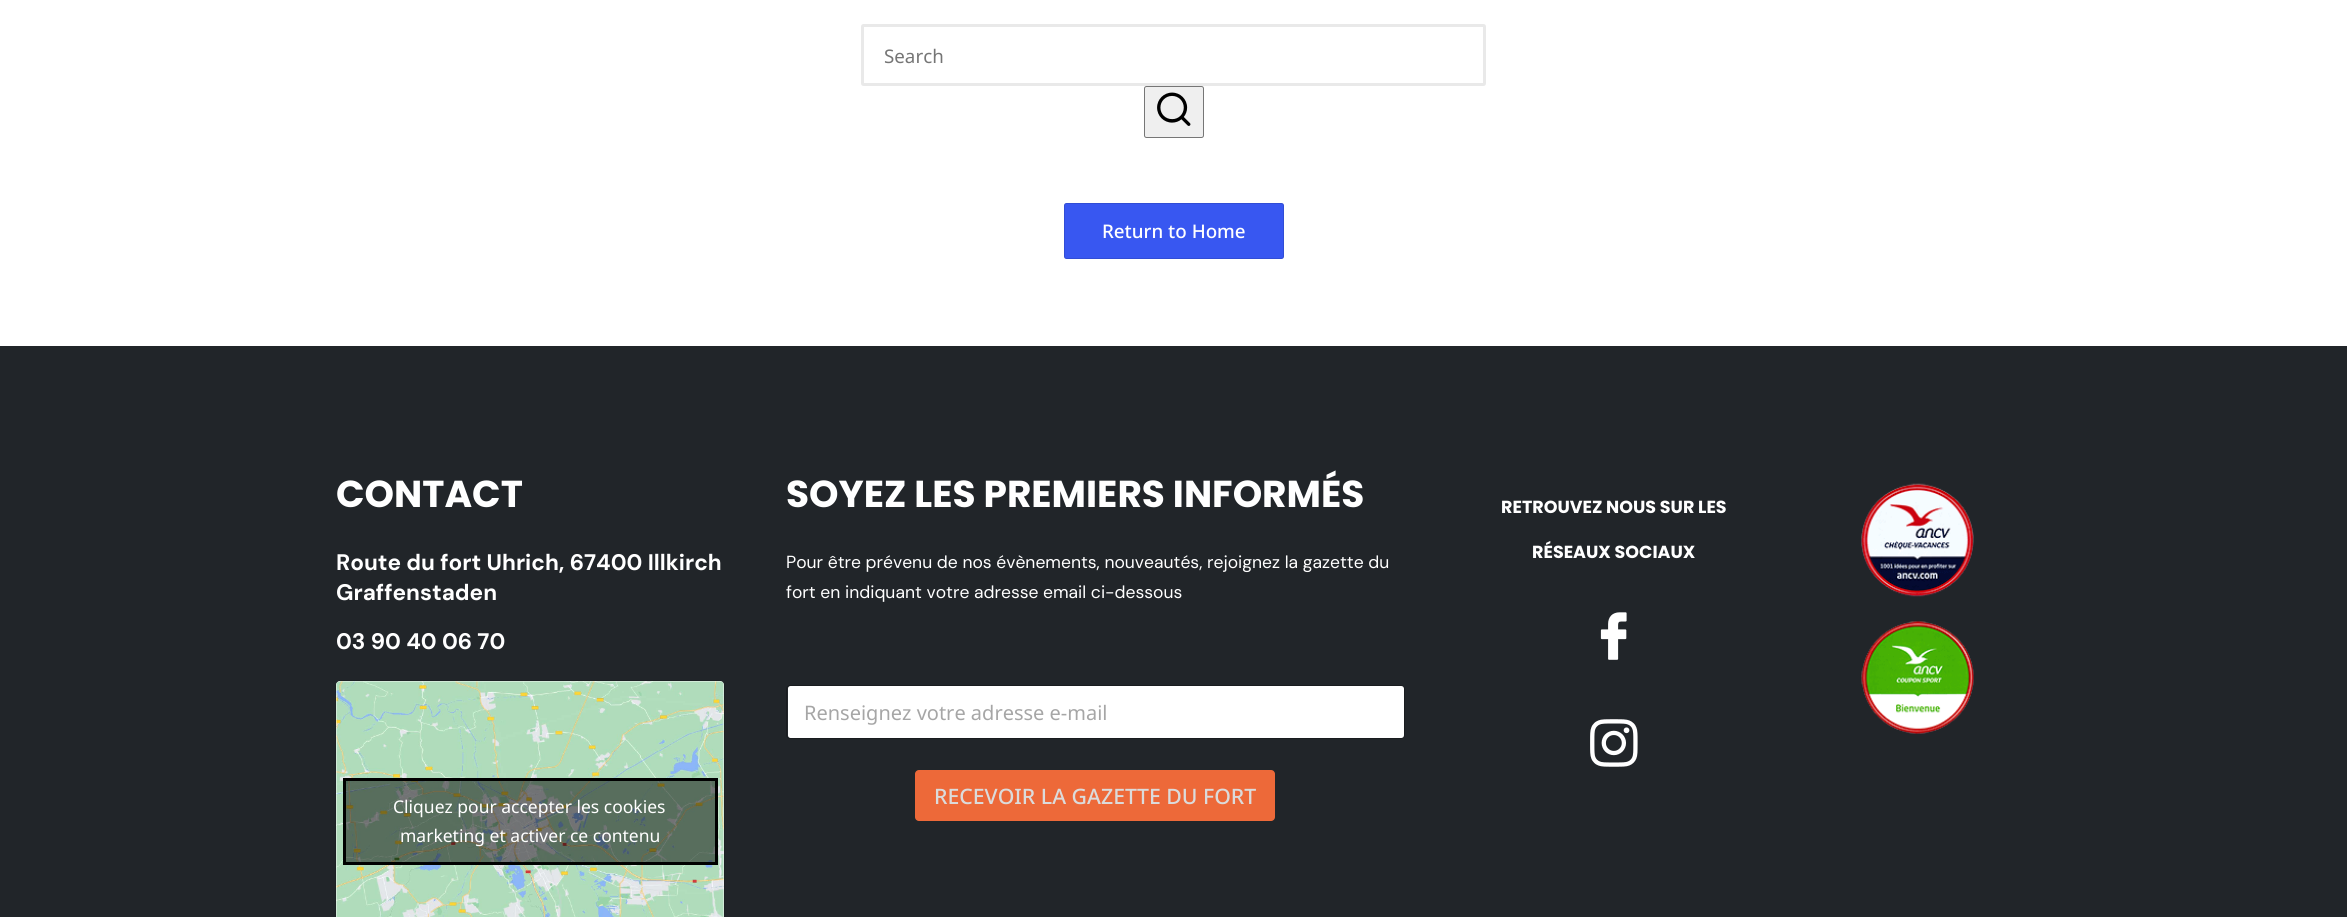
import math
import cairo


def round_path(ctx, x, y, w, h, r):
	ctx.new_sub_path()
	for i, (u, v) in enumerate([(x + w - r, y + h - r), (x + r, y + h - r), (x + r, y + r), (x + w - r, y + r)]):
		ctx.arc(u, v, r, i * math.pi / 2, (i + 1) * math.pi / 2)
	ctx.close_path()

def blur_box(ctx, x, y, w, h, r, blur, alpha):
	ctx.push_group_with_content(cairo.CONTENT_ALPHA)
	ctx.set_operator(cairo.OPERATOR_SOURCE)
	for i in range(15, -16, -2):
		e = blur * i / 6
		if min(w, h) + 2 * e > 0:
			ctx.set_source_rgba(0, 0, 0, alpha * math.erfc((i - 1) / 8.5) / 2)
			round_path(ctx, x - e, y - e, w + 2 * e, h + 2 * e, max(0, min(r + e + blur * .6, min(w, h) / 2 + e)))
			ctx.fill()
	ctx.mask(ctx.pop_group())

def paste(ctx, path, x, y, w, h):
	ctx.save()
	ctx.set_source_surface(cairo.ImageSurface.create_from_png(path), x, y)
	ctx.rectangle(x, y, w, h)
	ctx.fill()
	ctx.restore()

def draw(ctx):
	ctx.set_source_rgb(1, 1, 1)
	ctx.paint()
	round_path(ctx, 862.5, 25.5, 622, 59, 1)
	ctx.set_source_rgb(0.914, 0.914, 0.914)
	ctx.set_line_width(3)
	ctx.stroke()
	ctx.select_font_face('Noto Sans')
	ctx.set_font_size(18.75)
	ctx.set_source_rgb(0.459, 0.459, 0.459)
	ctx.move_to(884, 63)
	ctx.show_text('Search')
	ctx.set_source_rgb(0.937, 0.937, 0.937)
	round_path(ctx, 1144.5, 86.5, 59, 51, 2)
	ctx.fill_preserve()
	ctx.set_source_rgb(0.463, 0.463, 0.463)
	ctx.set_line_width(1)
	ctx.stroke()
	paste(ctx, 'media/1.png', 1157, 92, 34, 34)
	ctx.set_source_rgb(0.22, 0.341, 0.945)
	round_path(ctx, 1064, 203, 220, 56, 2.5)
	ctx.fill()
	round_path(ctx, 1064.5, 203.5, 219, 55, 2)
	ctx.set_source_rgba(0, 0, 0, 0.12)
	ctx.stroke()
	ctx.select_font_face('Noto Sans Medium')
	ctx.set_source_rgb(1, 1, 1)
	ctx.move_to(1102, 238)
	ctx.show_text('Return to Home')
	ctx.set_source_rgb(0.129, 0.145, 0.161)
	ctx.rectangle(0, 346, 2347, 571)
	ctx.fill()
	ctx.select_font_face('Poppins', cairo.FONT_SLANT_NORMAL, cairo.FONT_WEIGHT_BOLD)
	ctx.set_font_size(37.5)
	ctx.set_source_rgb(1, 1, 1)
	ctx.move_to(336, 507)
	ctx.show_text('CONTACT')
	ctx.select_font_face('DM Sans', cairo.FONT_SLANT_NORMAL, cairo.FONT_WEIGHT_BOLD)
	ctx.set_font_size(22.5)
	for x, y, s in [
		(336, 570, 'Route du fort Uhrich, 67400 Illkirch'),
		(336, 600, 'Graffenstaden'),
		(336, 649, '03 90 40 06 70'),
	]:
		ctx.move_to(x, y)
		ctx.show_text(s)
	ctx.set_source_rgb(0, 0, 0)
	blur_box(ctx, 336, 681, 388, 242, 4, 0.5, 0.5)
	ctx.set_source_rgb(1, 1, 1)
	round_path(ctx, 336, 681, 388, 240, 4)
	ctx.fill()
	paste(ctx, 'media/2.png', 336, 681, 388, 236)
	ctx.set_source_rgba(0, 0, 0, 0.5)
	ctx.rectangle(344.5, 779.5, 372, 84)
	ctx.fill_preserve()
	ctx.set_source_rgb(0, 0, 0)
	ctx.set_line_width(3)
	ctx.stroke()
	ctx.select_font_face('Noto Sans')
	ctx.set_font_size(17.5)
	ctx.set_source_rgb(1, 1, 1)
	ctx.move_to(393, 813)
	ctx.show_text('Cliquez pour accepter les cookies')
	ctx.move_to(400, 842)
	ctx.show_text('marketing et activer ce contenu')
	ctx.select_font_face('Poppins', cairo.FONT_SLANT_NORMAL, cairo.FONT_WEIGHT_BOLD)
	ctx.set_font_size(37.5)
	ctx.move_to(786, 507)
	ctx.show_text('SOYEZ LES PREMIERS INFORMÉS')
	ctx.select_font_face('DM Sans')
	ctx.set_font_size(17.5)
	ctx.move_to(786, 568)
	ctx.show_text('Pour être prévenu de nos évènements, nouveautés, rejoignez la gazette du')
	ctx.move_to(786, 598)
	ctx.show_text('fort en indiquant votre adresse email ci-dessous')
	round_path(ctx, 788, 686, 616, 52, 2.5)
	ctx.fill()
	round_path(ctx, 786.5, 685.5, 618, 53, 3.5)
	ctx.set_source_rgba(0, 0, 0, 0.25)
	ctx.set_line_width(1)
	ctx.stroke()
	ctx.select_font_face('Noto Sans')
	ctx.set_font_size(20)
	ctx.set_source_rgb(0.651, 0.651, 0.651)
	ctx.move_to(804, 720)
	ctx.show_text('Renseignez votre adresse e-mail')
	ctx.set_source_rgb(0.929, 0.412, 0.224)
	round_path(ctx, 915, 770, 360, 51, 4)
	ctx.fill()
	ctx.select_font_face('Noto Sans Medium')
	ctx.set_font_size(21.25)
	ctx.set_source_rgb(0.859, 0.859, 0.859)
	ctx.move_to(934, 804)
	ctx.show_text('RECEVOIR LA GAZETTE DU FORT')
	ctx.select_font_face('Poppins', cairo.FONT_SLANT_NORMAL, cairo.FONT_WEIGHT_BOLD)
	ctx.set_font_size(17.5)
	ctx.set_source_rgb(1, 1, 1)
	ctx.move_to(1501, 513)
	ctx.show_text('RETROUVEZ NOUS SUR LES')
	ctx.move_to(1532, 558)
	ctx.show_text('RÉSEAUX SOCIAUX')
	paste(ctx, 'media/3.png', 1600, 612, 27, 48)
	paste(ctx, 'media/4.png', 1590, 719, 48, 48)
	paste(ctx, 'media/5.png', 1861, 483, 113, 114)
	paste(ctx, 'media/6.png', 1861, 621, 113, 113)


surface = cairo.ImageSurface(cairo.FORMAT_RGB24, 2347, 917)
ctx = cairo.Context(surface)
options = cairo.FontOptions()
options.set_hint_metrics(cairo.HINT_METRICS_OFF)
options.set_hint_style(cairo.HINT_STYLE_NONE)
ctx.set_font_options(options)
ctx.set_miter_limit(4)
draw(ctx)
surface.write_to_png('image.png')
